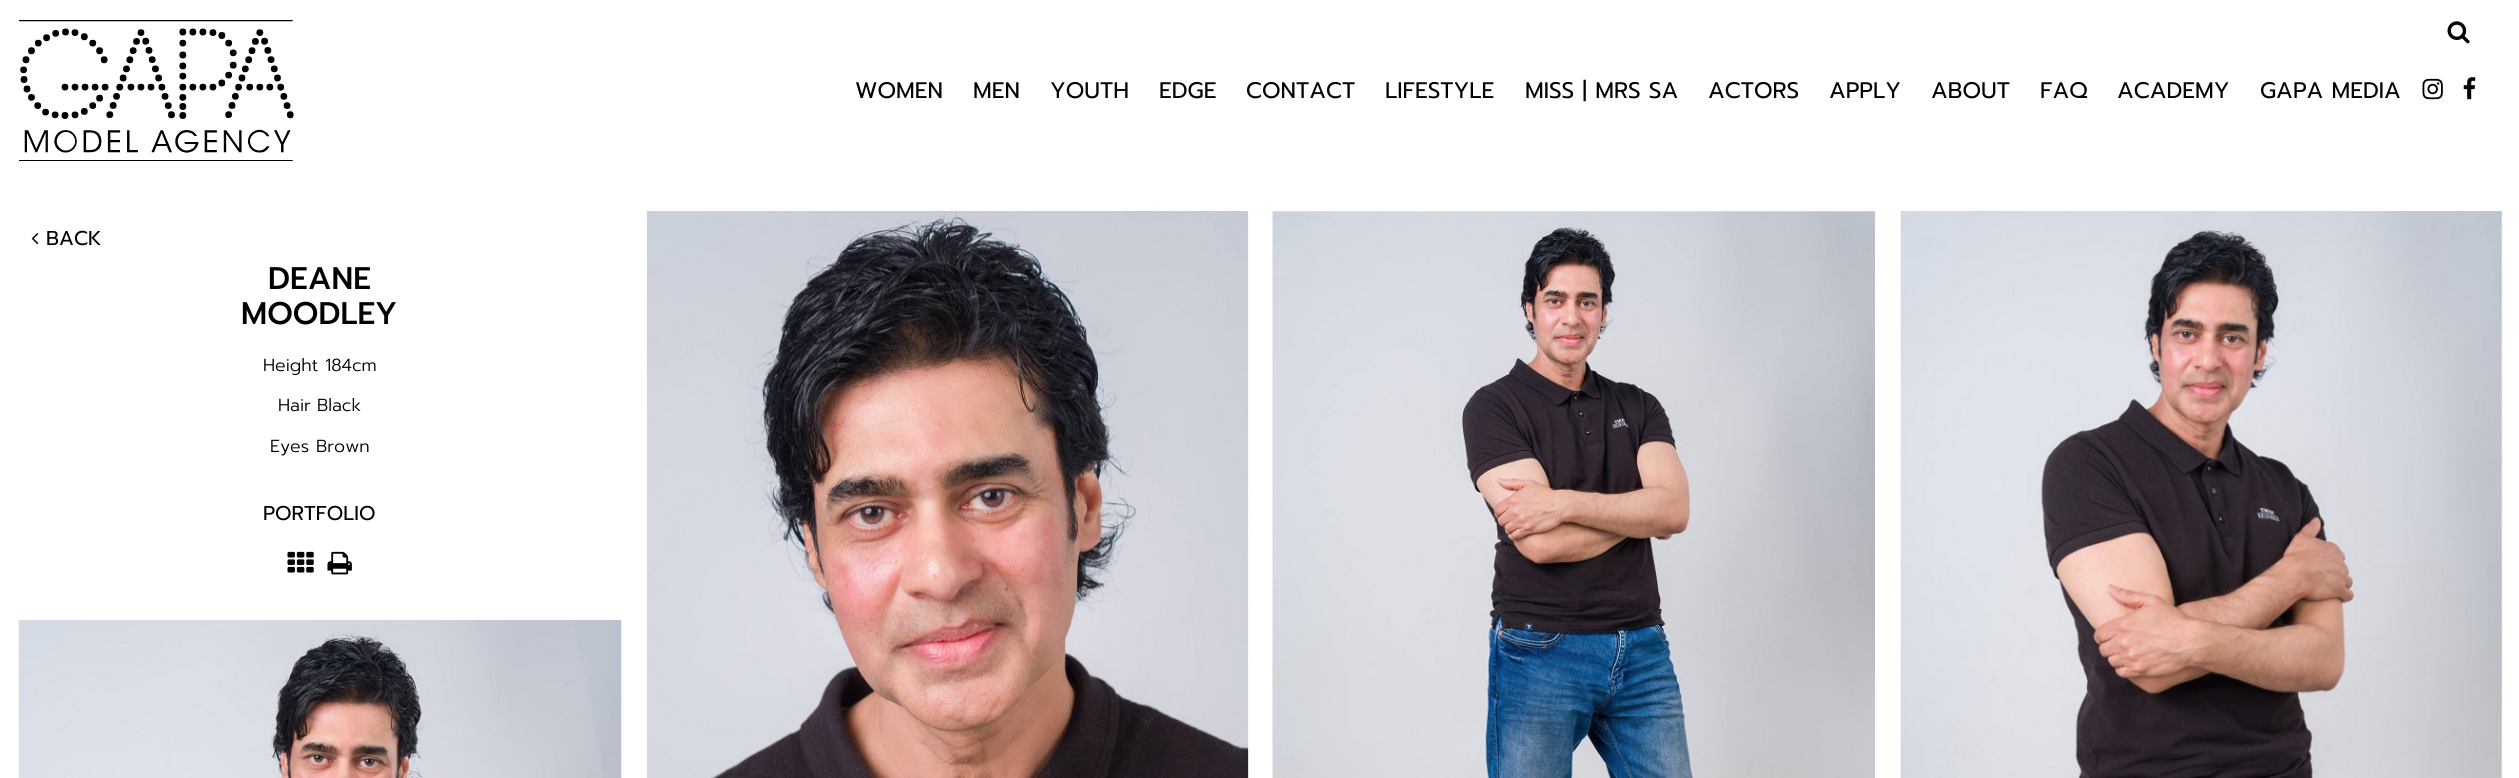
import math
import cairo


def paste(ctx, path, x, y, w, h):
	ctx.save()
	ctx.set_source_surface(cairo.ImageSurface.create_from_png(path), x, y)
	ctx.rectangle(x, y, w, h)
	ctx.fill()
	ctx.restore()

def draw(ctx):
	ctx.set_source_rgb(1, 1, 1)
	ctx.paint()
	paste(ctx, 'media/1.png', 2447, 21, 23, 23)
	paste(ctx, 'media/2.png', 19, 20, 275, 141)
	ctx.select_font_face('Prompt')
	ctx.set_font_size(22.5)
	ctx.set_source_rgb(0, 0, 0)
	for x, y, s in [
		(855, 98, 'WOMEN'),
		(973, 98, 'MEN'),
		(1050, 98, 'YOUTH'),
		(1159, 98, 'EDGE'),
		(1246, 98, 'CONTACT'),
		(1385, 98, 'LIFESTYLE'),
		(1525, 98, 'MISS | MRS SA'),
		(1708, 98, 'ACTORS'),
		(1829, 98, 'APPLY'),
		(1931, 98, 'ABOUT'),
		(2040, 98, 'FAQ'),
		(2117, 98, 'ACADEMY'),
		(2260, 98, 'GAPA MEDIA'),
	]:
		ctx.move_to(x, y)
		ctx.show_text(s)
	paste(ctx, 'media/3.png', 2422, 78, 21, 22)
	paste(ctx, 'media/4.png', 2463, 77, 13, 23)
	paste(ctx, 'media/5.png', 31, 233, 8, 12)
	ctx.set_font_size(20)
	ctx.move_to(46, 245)
	ctx.show_text('BACK')
	ctx.select_font_face('Prompt Medium')
	ctx.set_font_size(31.25)
	ctx.move_to(268, 289)
	ctx.show_text('DEANE')
	ctx.move_to(241, 324)
	ctx.show_text('MOODLEY')
	ctx.select_font_face('Prompt Light')
	ctx.set_font_size(17.5)
	for x, y, s in [
		(263, 371, 'Height'),
		(325, 371, '184cm'),
		(278, 411, 'Hair'),
		(317, 411, 'Black'),
		(270, 452, 'Eyes'),
		(316, 452, 'Brown'),
	]:
		ctx.move_to(x, y)
		ctx.show_text(s)
	ctx.select_font_face('Prompt')
	ctx.set_font_size(20)
	ctx.move_to(263, 520)
	ctx.show_text('PORTFOLIO')
	paste(ctx, 'media/6.png', 287, 551, 27, 22)
	paste(ctx, 'media/7.png', 327, 551, 25, 24)
	paste(ctx, 'media/8.png', 646, 211, 603, 567)
	paste(ctx, 'media/9.png', 1272, 211, 603, 567)
	paste(ctx, 'media/10.png', 1900, 211, 603, 567)
	paste(ctx, 'media/11.png', 18, 620, 604, 158)


surface = cairo.ImageSurface(cairo.FORMAT_RGB24, 2519, 778)
ctx = cairo.Context(surface)
options = cairo.FontOptions()
options.set_hint_metrics(cairo.HINT_METRICS_OFF)
options.set_hint_style(cairo.HINT_STYLE_NONE)
ctx.set_font_options(options)
ctx.set_miter_limit(4)
draw(ctx)
surface.write_to_png('image.png')
